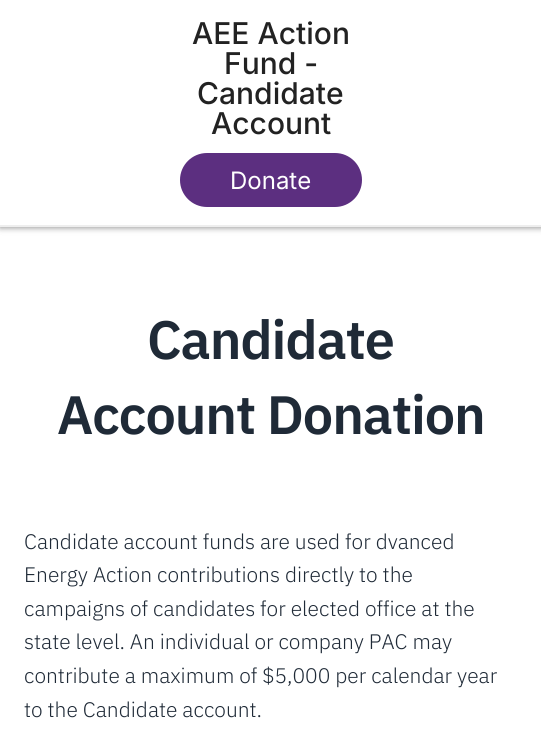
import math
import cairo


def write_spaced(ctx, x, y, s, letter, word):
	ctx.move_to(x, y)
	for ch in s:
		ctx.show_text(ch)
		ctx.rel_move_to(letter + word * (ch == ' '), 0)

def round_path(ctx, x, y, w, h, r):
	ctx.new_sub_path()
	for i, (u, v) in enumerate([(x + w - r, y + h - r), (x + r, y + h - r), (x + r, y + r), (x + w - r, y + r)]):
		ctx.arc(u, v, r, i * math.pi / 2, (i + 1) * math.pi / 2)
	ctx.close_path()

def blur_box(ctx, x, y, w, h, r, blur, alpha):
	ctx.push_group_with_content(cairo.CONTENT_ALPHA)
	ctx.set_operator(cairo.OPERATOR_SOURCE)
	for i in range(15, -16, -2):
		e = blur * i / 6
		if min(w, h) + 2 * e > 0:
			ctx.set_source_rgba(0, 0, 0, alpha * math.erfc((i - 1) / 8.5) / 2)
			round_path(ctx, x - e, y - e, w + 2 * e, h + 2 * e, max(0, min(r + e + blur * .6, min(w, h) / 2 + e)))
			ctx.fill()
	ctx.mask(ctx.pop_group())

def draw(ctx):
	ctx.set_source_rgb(1, 1, 1)
	ctx.paint()
	ctx.set_source_rgb(0, 0, 0)
	blur_box(ctx, 0, 2, 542, 226, 0, 3, 0.4)
	ctx.set_source_rgb(1, 1, 1)
	ctx.rectangle(0, 0, 541, 225)
	ctx.fill()
	ctx.set_source_rgb(0.933, 0.933, 0.933)
	ctx.rectangle(0, 225, 541, 2)
	ctx.fill()
	ctx.select_font_face('Inter Medium')
	ctx.set_font_size(30)
	ctx.set_source_rgb(0.133, 0.133, 0.133)
	for x, y, s in [
		(192, 44, 'AEE Action'),
		(224, 74, 'Fund -'),
		(197, 104, 'Candidate'),
		(211, 134, 'Account'),
	]:
		ctx.move_to(x, y)
		ctx.show_text(s)
	ctx.set_source_rgb(0.361, 0.184, 0.502)
	round_path(ctx, 180, 153, 182, 54, 27)
	ctx.fill()
	ctx.select_font_face('Inter')
	ctx.set_font_size(24)
	ctx.set_source_rgb(1, 1, 1)
	ctx.move_to(230, 189)
	ctx.show_text('Donate')
	ctx.select_font_face('IBM Plex Sans SemiBold')
	ctx.set_font_size(54)
	ctx.set_source_rgb(0.122, 0.165, 0.216)
	write_spaced(ctx, 147, 359, 'Candidate', -1.1, 0)
	write_spaced(ctx, 57, 434, 'Account Donation', -1.1, 0)
	ctx.select_font_face('IBM Plex Sans Light')
	ctx.set_font_size(21)
	for x, y, s in [
		(24, 549, 'Candidate account funds are used for dvanced'),
		(24, 582, 'Energy Action contributions directly to the'),
		(24, 616, 'campaigns of candidates for elected office at the'),
		(24, 649, 'state level. An individual or company PAC may'),
		(24, 683, 'contribute a maximum of $5,000 per calendar year'),
		(24, 717, 'to the Candidate account.'),
	]:
		ctx.move_to(x, y)
		ctx.show_text(s)


surface = cairo.ImageSurface(cairo.FORMAT_RGB24, 541, 755)
ctx = cairo.Context(surface)
options = cairo.FontOptions()
options.set_hint_metrics(cairo.HINT_METRICS_OFF)
options.set_hint_style(cairo.HINT_STYLE_NONE)
ctx.set_font_options(options)
ctx.set_miter_limit(4)
draw(ctx)
surface.write_to_png('image.png')
